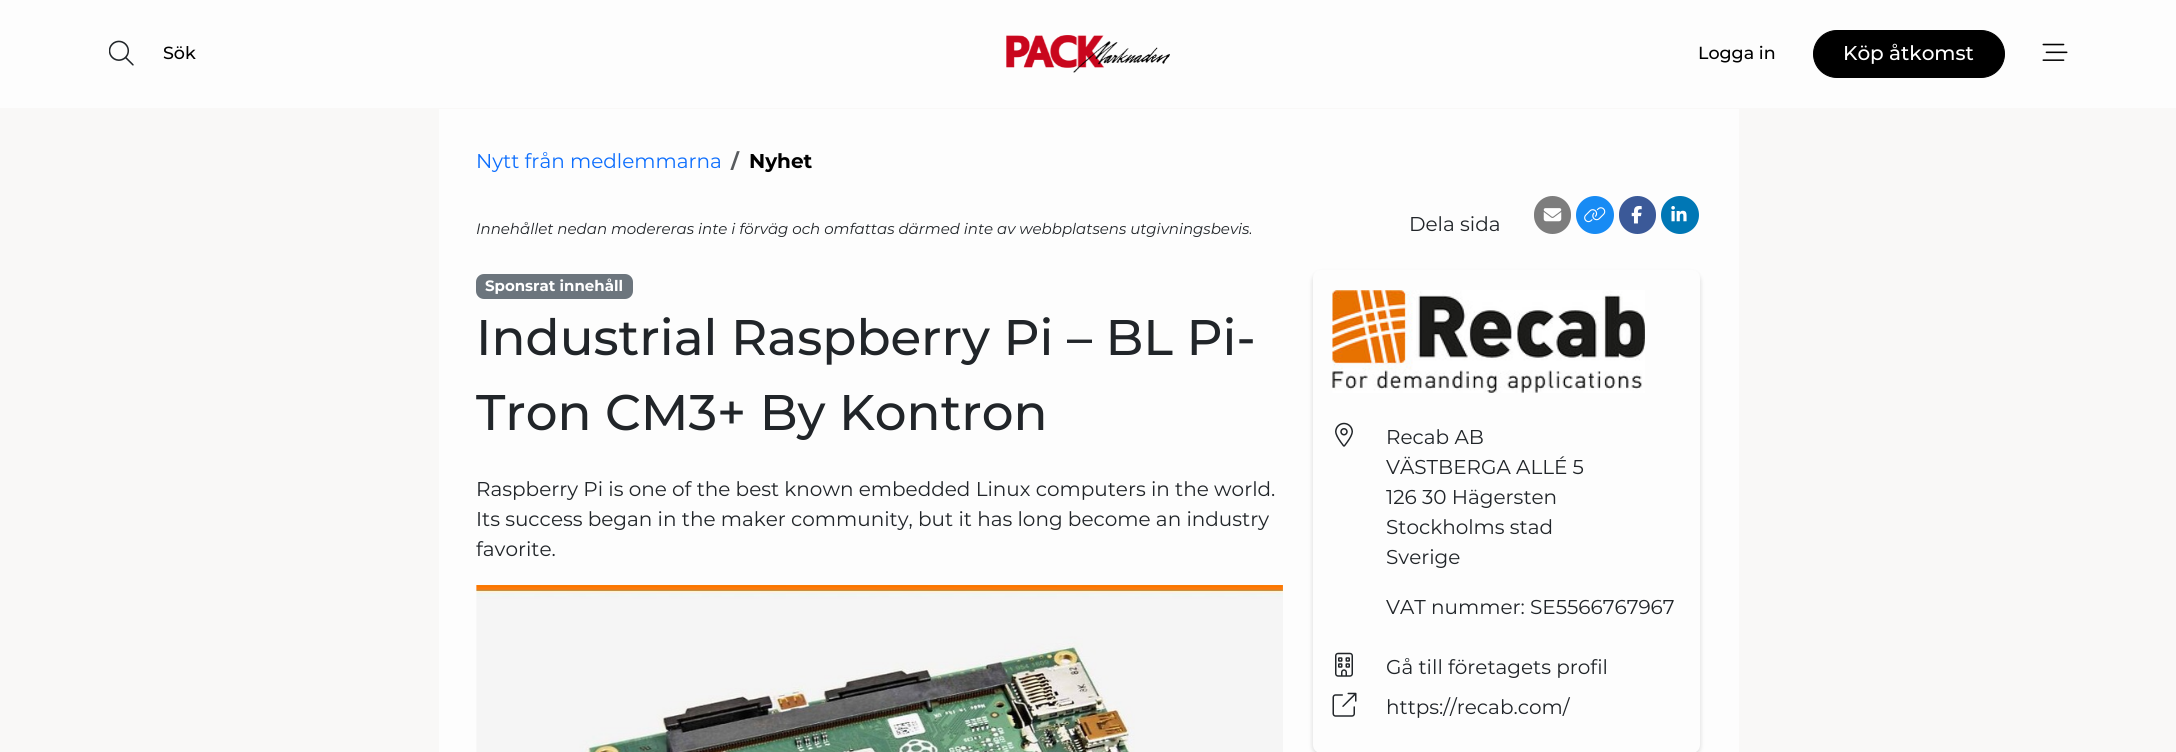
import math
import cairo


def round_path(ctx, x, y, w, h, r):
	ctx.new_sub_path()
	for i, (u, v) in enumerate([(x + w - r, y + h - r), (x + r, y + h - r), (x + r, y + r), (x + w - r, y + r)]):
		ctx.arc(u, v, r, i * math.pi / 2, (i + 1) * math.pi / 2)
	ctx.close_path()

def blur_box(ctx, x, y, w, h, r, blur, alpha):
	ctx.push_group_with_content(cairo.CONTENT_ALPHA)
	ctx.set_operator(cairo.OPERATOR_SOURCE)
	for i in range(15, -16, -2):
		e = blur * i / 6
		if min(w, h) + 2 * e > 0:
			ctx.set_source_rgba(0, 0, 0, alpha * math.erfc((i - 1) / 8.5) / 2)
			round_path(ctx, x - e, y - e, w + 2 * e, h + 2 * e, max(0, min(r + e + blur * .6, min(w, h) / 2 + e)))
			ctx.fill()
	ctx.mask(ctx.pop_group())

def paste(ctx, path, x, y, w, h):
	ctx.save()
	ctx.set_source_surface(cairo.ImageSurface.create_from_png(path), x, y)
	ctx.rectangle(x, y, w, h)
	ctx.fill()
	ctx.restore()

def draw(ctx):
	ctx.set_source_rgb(0.973, 0.969, 0.965)
	ctx.paint()
	ctx.set_source_rgb(0.992, 0.992, 0.992)
	ctx.rectangle(0, 0, 2176, 108)
	ctx.fill()
	paste(ctx, 'media/1.png', 109, 40, 25, 26)
	ctx.select_font_face('Montserrat Medium')
	ctx.set_font_size(17.5)
	ctx.set_source_rgb(0, 0, 0)
	ctx.move_to(163, 59)
	ctx.show_text('Sök')
	paste(ctx, 'media/2.png', 1006, 35, 164, 38)
	ctx.move_to(1698, 59)
	ctx.show_text('Logga in')
	round_path(ctx, 1813.5, 30.5, 191, 47, 23.5)
	ctx.fill_preserve()
	ctx.set_line_width(1)
	ctx.stroke()
	ctx.set_font_size(20)
	ctx.set_source_rgb(1, 1, 1)
	ctx.move_to(1843, 60)
	ctx.show_text('Köp åtkomst')
	paste(ctx, 'media/3.png', 2042, 43, 26, 18)
	ctx.set_source_rgb(0.992, 0.992, 0.992)
	ctx.rectangle(439, 109, 1300, 643)
	ctx.fill()
	ctx.select_font_face('Montserrat')
	ctx.set_source_rgb(0.051, 0.431, 0.992)
	ctx.move_to(476, 168)
	ctx.show_text('Nytt från medlemmarna')
	ctx.select_font_face('Montserrat', cairo.FONT_SLANT_NORMAL, cairo.FONT_WEIGHT_BOLD)
	ctx.set_source_rgb(0.345, 0.357, 0.369)
	ctx.move_to(731, 168)
	ctx.show_text('/')
	ctx.set_source_rgb(0, 0, 0)
	ctx.move_to(749, 168)
	ctx.show_text('Nyhet')
	ctx.select_font_face('Montserrat', cairo.FONT_SLANT_ITALIC)
	ctx.set_font_size(15)
	ctx.set_source_rgb(0.129, 0.145, 0.161)
	ctx.move_to(476, 234)
	ctx.show_text('Innehållet nedan modereras inte i förväg och omfattas därmed inte av webbplatsens utgivningsbevis.')
	ctx.select_font_face('Montserrat')
	ctx.set_font_size(20)
	ctx.move_to(1409, 231)
	ctx.show_text('Dela sida')
	ctx.set_source_rgb(0.49, 0.49, 0.49)
	round_path(ctx, 1534, 196, 37, 38, 18.5)
	ctx.fill()
	paste(ctx, 'media/4.png', 1543, 208, 19, 14)
	ctx.set_source_rgb(0.09, 0.545, 0.957)
	ctx.arc(1595, 215, 19, 0, 2 * math.pi)
	ctx.fill()
	paste(ctx, 'media/5.png', 1584, 207, 22, 16)
	ctx.set_source_rgb(0.231, 0.349, 0.596)
	round_path(ctx, 1619, 196, 37, 38, 18.5)
	ctx.fill()
	paste(ctx, 'media/6.png', 1631, 205, 11, 19)
	ctx.set_source_rgb(0, 0.467, 0.71)
	ctx.arc(1680, 215, 19, 0, 2 * math.pi)
	ctx.fill()
	paste(ctx, 'media/7.png', 1671, 206, 16, 16)
	ctx.set_source_rgb(0.424, 0.459, 0.49)
	round_path(ctx, 476, 274, 157, 25, 8)
	ctx.fill()
	ctx.select_font_face('Montserrat', cairo.FONT_SLANT_NORMAL, cairo.FONT_WEIGHT_BOLD)
	ctx.set_font_size(15)
	ctx.set_source_rgb(1, 1, 1)
	ctx.move_to(485, 291)
	ctx.show_text('Sponsrat innehåll')
	ctx.select_font_face('Montserrat Medium')
	ctx.set_font_size(50)
	ctx.set_source_rgb(0.129, 0.145, 0.161)
	ctx.move_to(476, 355)
	ctx.show_text('Industrial Raspberry Pi – BL Pi-')
	ctx.move_to(476, 430)
	ctx.show_text('Tron CM3+ By Kontron')
	ctx.select_font_face('Montserrat')
	ctx.set_font_size(20)
	for x, y, s in [
		(476, 496, 'Raspberry Pi is one of the best known embedded Linux computers in the world.'),
		(476, 526, 'Its success began in the maker community, but it has long become an industry'),
		(476, 556, 'favorite.'),
	]:
		ctx.move_to(x, y)
		ctx.show_text(s)
	paste(ctx, 'media/8.png', 476, 585, 807, 167)
	ctx.set_source_rgb(0, 0, 0)
	blur_box(ctx, 1313, 273, 387, 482, 8, 2.5, 0.15)
	ctx.set_source_rgb(0.992, 0.992, 0.992)
	round_path(ctx, 1313, 270, 387, 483, 8)
	ctx.fill()
	paste(ctx, 'media/9.png', 1332, 290, 313, 103)
	paste(ctx, 'media/10.png', 1335, 422, 18, 25)
	ctx.set_source_rgb(0.129, 0.145, 0.161)
	for x, y, s in [
		(1386, 444, 'Recab AB'),
		(1386, 474, 'VÄSTBERGA ALLÉ 5'),
		(1386, 504, '126 30 Hägersten'),
		(1386, 534, 'Stockholms stad'),
		(1386, 564, 'Sverige'),
		(1386, 614, 'VAT nummer: SE5566767967'),
	]:
		ctx.move_to(x, y)
		ctx.show_text(s)
	paste(ctx, 'media/11.png', 1335, 652, 18, 25)
	ctx.move_to(1386, 674)
	ctx.show_text('Gå till företagets profil')
	paste(ctx, 'media/12.png', 1332, 692, 25, 25)
	ctx.move_to(1386, 714)
	ctx.show_text('https://recab.com/')


surface = cairo.ImageSurface(cairo.FORMAT_RGB24, 2176, 752)
ctx = cairo.Context(surface)
options = cairo.FontOptions()
options.set_hint_metrics(cairo.HINT_METRICS_OFF)
options.set_hint_style(cairo.HINT_STYLE_NONE)
ctx.set_font_options(options)
ctx.set_miter_limit(4)
draw(ctx)
surface.write_to_png('image.png')
